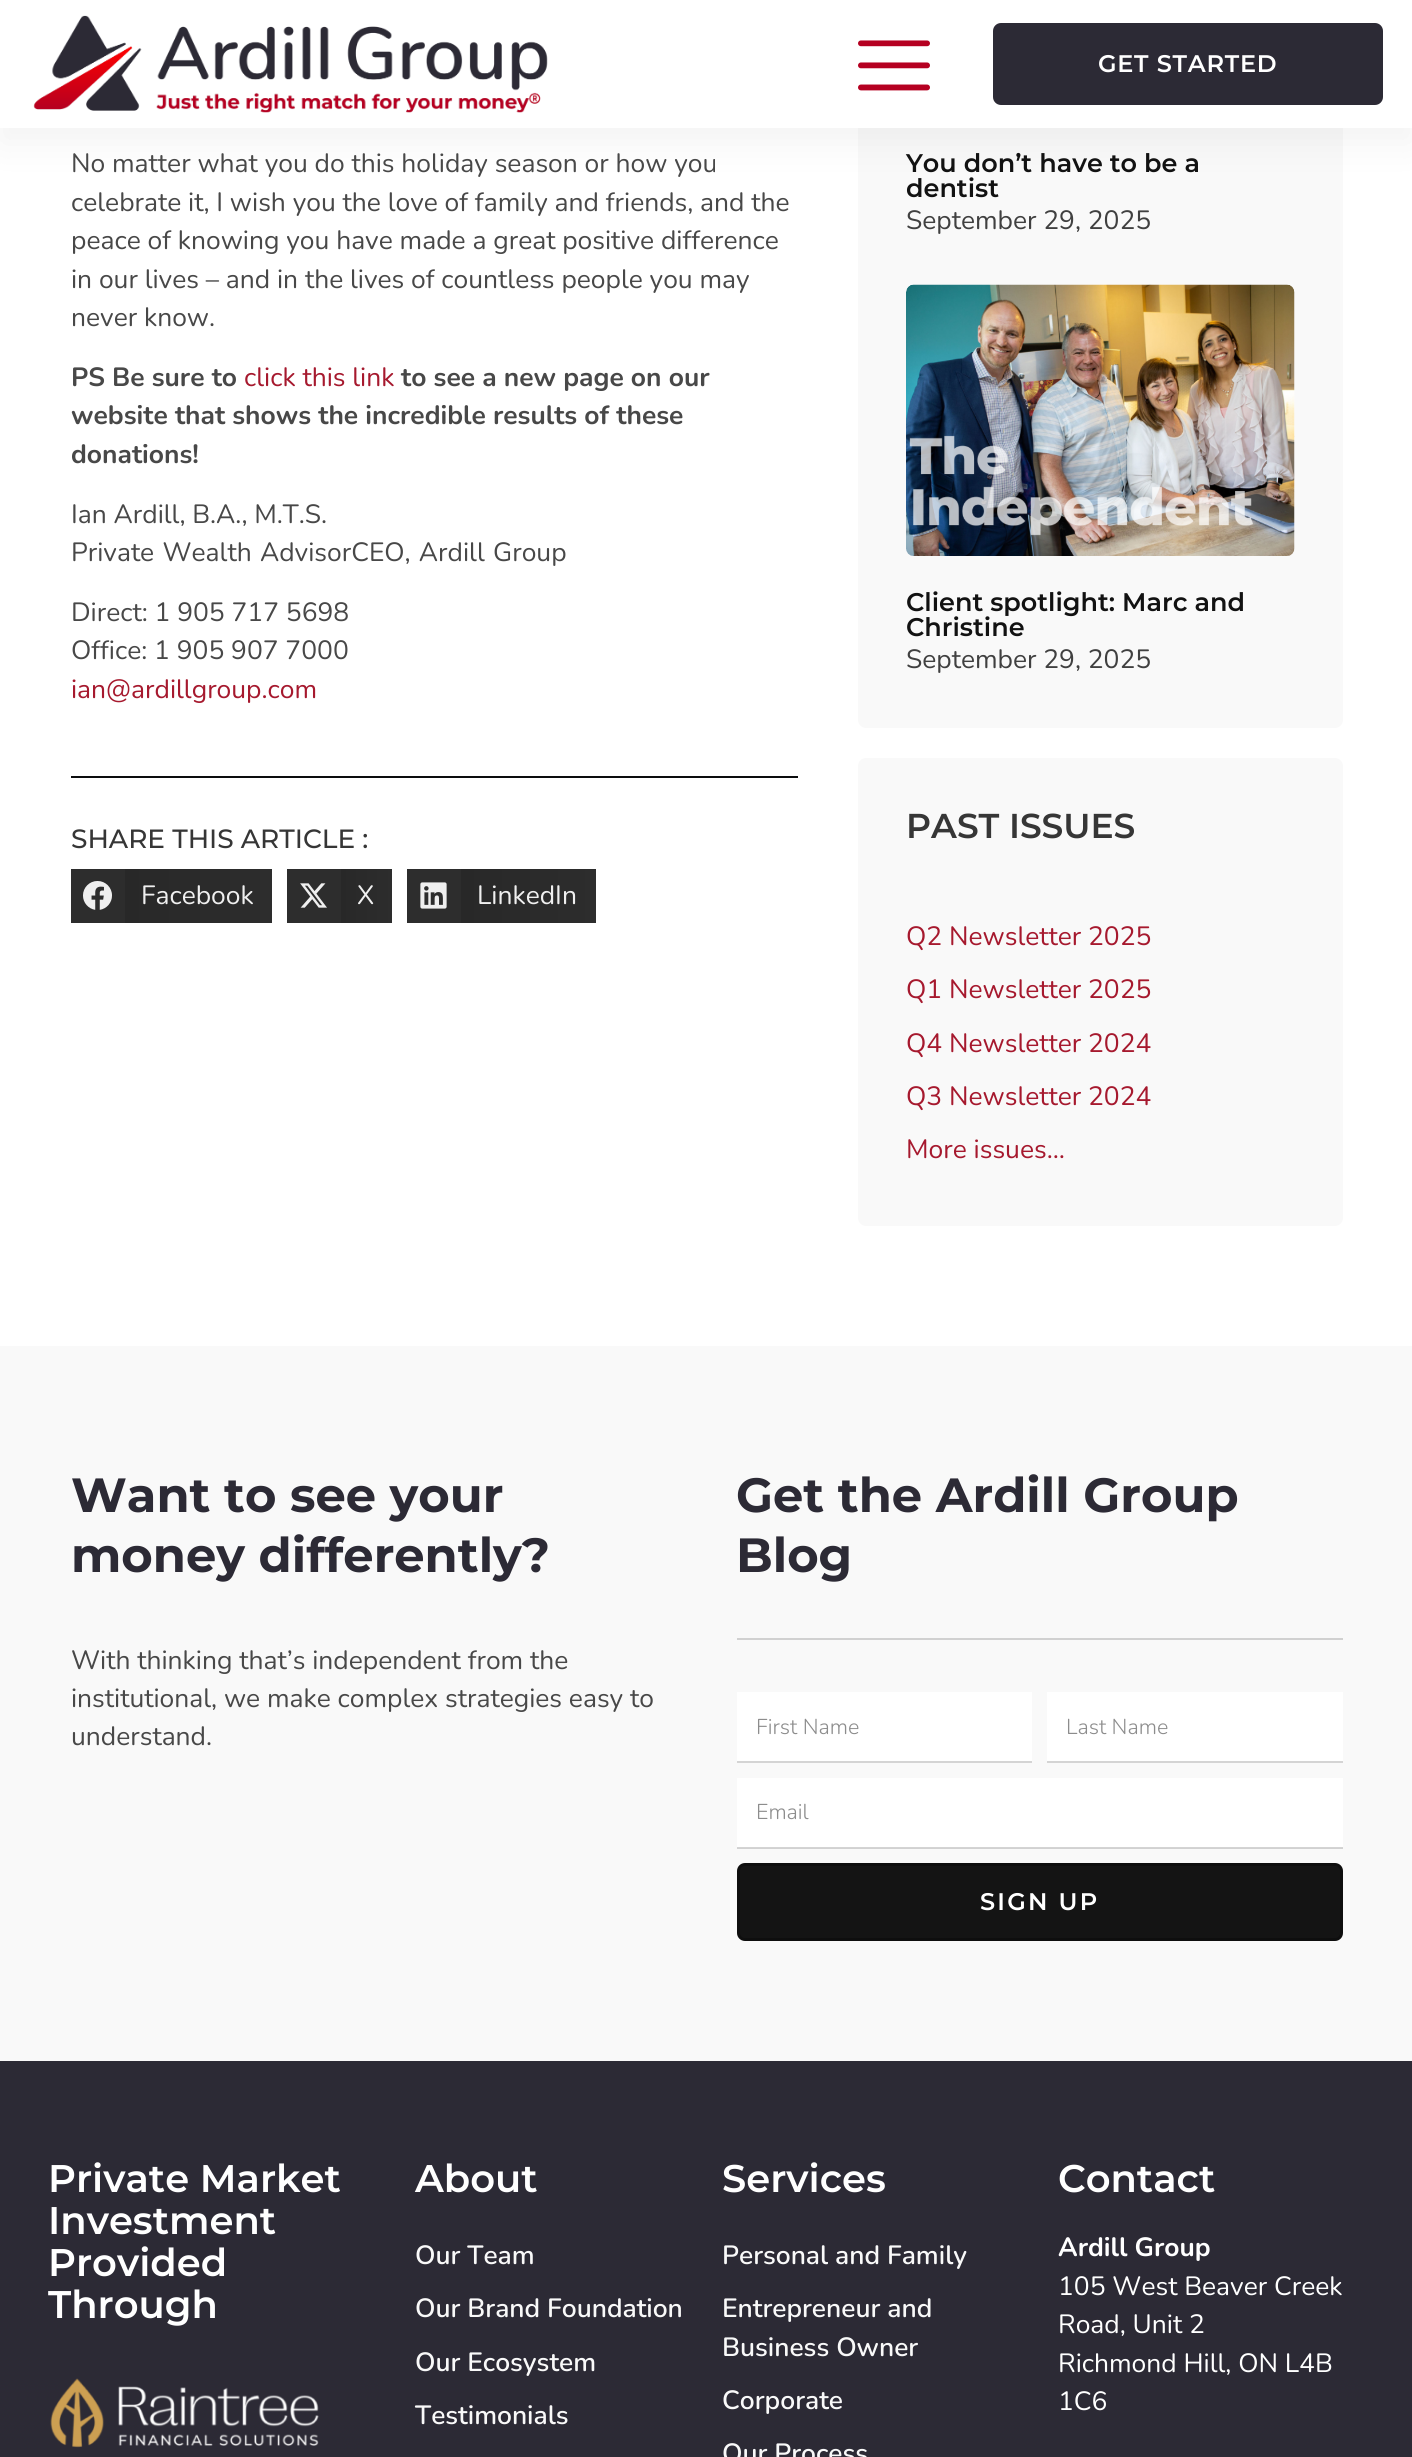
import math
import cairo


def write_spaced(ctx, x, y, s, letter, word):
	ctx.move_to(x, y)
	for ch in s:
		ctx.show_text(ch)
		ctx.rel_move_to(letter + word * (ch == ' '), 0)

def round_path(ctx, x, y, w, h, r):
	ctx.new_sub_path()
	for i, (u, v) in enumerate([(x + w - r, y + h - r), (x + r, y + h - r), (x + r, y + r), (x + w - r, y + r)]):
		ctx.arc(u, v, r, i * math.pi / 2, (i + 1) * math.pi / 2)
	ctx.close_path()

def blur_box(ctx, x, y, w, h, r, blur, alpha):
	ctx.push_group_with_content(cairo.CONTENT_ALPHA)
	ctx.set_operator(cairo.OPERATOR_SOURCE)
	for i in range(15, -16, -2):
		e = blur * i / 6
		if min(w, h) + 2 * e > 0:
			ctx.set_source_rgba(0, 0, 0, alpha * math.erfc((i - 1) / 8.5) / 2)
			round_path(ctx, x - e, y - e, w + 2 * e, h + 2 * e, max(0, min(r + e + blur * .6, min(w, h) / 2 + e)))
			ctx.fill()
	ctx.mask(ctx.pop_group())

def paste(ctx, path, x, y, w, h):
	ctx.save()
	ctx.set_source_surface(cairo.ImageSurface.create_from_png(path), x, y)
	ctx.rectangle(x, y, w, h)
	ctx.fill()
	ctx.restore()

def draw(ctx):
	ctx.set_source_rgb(1, 1, 1)
	ctx.paint()
	ctx.set_source_rgb(0.976, 0.976, 0.976)
	round_path(ctx, 858, -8, 485, 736, 8)
	ctx.fill()
	ctx.set_source_rgb(0, 0, 0)
	blur_box(ctx, 0, 15, 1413, 128, 0, 19, 0.05)
	ctx.set_source_rgb(1, 1, 1)
	ctx.rectangle(0, 0, 1412, 128)
	ctx.fill()
	paste(ctx, 'media/1.png', 33, 15, 515, 98)
	paste(ctx, 'media/2.png', 858, 40, 72, 51)
	ctx.set_source_rgb(0.173, 0.165, 0.208)
	round_path(ctx, 994.5, 24.5, 387, 79, 6.5)
	ctx.fill_preserve()
	ctx.set_line_width(3)
	ctx.stroke()
	ctx.select_font_face('Montserrat SemiBold')
	ctx.set_font_size(24)
	ctx.set_source_rgb(1, 1, 1)
	write_spaced(ctx, 1098, 72, 'GET STARTED', 0.75, 0)
	ctx.select_font_face('Nunito')
	ctx.set_font_size(26.4)
	ctx.set_source_rgb(0.282, 0.282, 0.282)
	for x, y, s in [
		(71, 172, 'No matter what you do this holiday season or how you'),
		(71, 211, 'celebrate it, I wish you the love of family and friends, and the'),
		(71, 249, 'peace of knowing you have made a great positive difference'),
		(71, 288, 'in our lives – and in the lives of countless people you may'),
		(71, 326, 'never know.'),
	]:
		ctx.move_to(x, y)
		ctx.show_text(s)
	ctx.select_font_face('Nunito', cairo.FONT_SLANT_NORMAL, cairo.FONT_WEIGHT_BOLD)
	ctx.move_to(71, 386)
	ctx.show_text('PS Be sure to')
	ctx.select_font_face('Nunito')
	ctx.set_source_rgb(0.651, 0.098, 0.18)
	ctx.move_to(244, 386)
	ctx.show_text('click this link')
	ctx.select_font_face('Nunito', cairo.FONT_SLANT_NORMAL, cairo.FONT_WEIGHT_BOLD)
	ctx.set_source_rgb(0.282, 0.282, 0.282)
	for x, y, s in [
		(401, 386, 'to see a new page on our'),
		(71, 424, 'website that shows the incredible results of these'),
		(71, 463, 'donations!'),
	]:
		ctx.move_to(x, y)
		ctx.show_text(s)
	ctx.select_font_face('Nunito')
	ctx.move_to(71, 523)
	ctx.show_text('Ian Ardill, B.A., M.T.S.')
	write_spaced(ctx, 71, 561, 'Private Wealth AdvisorCEO, Ardill Group', 0, 1.5)
	ctx.move_to(71, 621)
	ctx.show_text('Direct: 1 905 717 5698')
	ctx.move_to(71, 659)
	ctx.show_text('Office: 1 905 907 7000')
	ctx.set_source_rgb(0.651, 0.098, 0.18)
	ctx.move_to(71, 698)
	ctx.show_text('ian@ardillgroup.com')
	ctx.set_source_rgb(0.047, 0.051, 0.055)
	ctx.rectangle(71, 776, 727, 2)
	ctx.fill()
	ctx.select_font_face('Montserrat Medium')
	ctx.set_source_rgb(0.212, 0.212, 0.212)
	ctx.move_to(71, 848)
	ctx.show_text('SHARE THIS ARTICLE :')
	ctx.set_source_rgb(0.176, 0.176, 0.176)
	ctx.rectangle(71, 869, 54, 54)
	ctx.fill()
	paste(ctx, 'media/3.png', 83, 881, 29, 29)
	gradient = cairo.LinearGradient(125, 896, 272, 896)
	gradient.add_color_stop_rgba(0, 0.157, 0.157, 0.157, 1)
	gradient.add_color_stop_rgba(1, 0.176, 0.176, 0.176, 1)
	ctx.set_source(gradient)
	ctx.rectangle(125, 869, 147, 54)
	ctx.fill()
	ctx.select_font_face('Nunito')
	ctx.set_source_rgb(0.937, 0.937, 0.937)
	ctx.move_to(141, 904)
	ctx.show_text('Facebook')
	ctx.set_source_rgb(0.176, 0.176, 0.176)
	ctx.rectangle(287, 869, 54, 54)
	ctx.fill()
	paste(ctx, 'media/4.png', 300, 883, 27, 25)
	gradient = cairo.LinearGradient(341, 896, 392, 896)
	gradient.add_color_stop_rgba(0, 0.157, 0.157, 0.157, 1)
	gradient.add_color_stop_rgba(1, 0.176, 0.176, 0.176, 1)
	ctx.set_source(gradient)
	ctx.rectangle(341, 869, 51, 54)
	ctx.fill()
	ctx.set_source_rgb(0.937, 0.937, 0.937)
	ctx.move_to(357, 904)
	ctx.show_text('X')
	ctx.set_source_rgb(0.176, 0.176, 0.176)
	ctx.rectangle(407, 869, 54, 54)
	ctx.fill()
	paste(ctx, 'media/5.png', 420, 882, 27, 27)
	gradient = cairo.LinearGradient(461, 896, 596, 896)
	gradient.add_color_stop_rgba(0, 0.157, 0.157, 0.157, 1)
	gradient.add_color_stop_rgba(1, 0.176, 0.176, 0.176, 1)
	ctx.set_source(gradient)
	ctx.rectangle(461, 869, 135, 54)
	ctx.fill()
	ctx.set_source_rgb(0.937, 0.937, 0.937)
	ctx.move_to(477, 904)
	ctx.show_text('LinkedIn')
	ctx.select_font_face('Montserrat SemiBold')
	ctx.set_font_size(25.5)
	ctx.set_source_rgb(0.071, 0.071, 0.071)
	ctx.move_to(906, 172)
	ctx.show_text('You don’t have to be a')
	ctx.move_to(906, 197)
	ctx.show_text('dentist')
	ctx.select_font_face('Nunito')
	ctx.set_font_size(26.4)
	ctx.set_source_rgb(0.251, 0.251, 0.251)
	ctx.move_to(906, 229)
	ctx.show_text('September 29, 2025')
	paste(ctx, 'media/6.png', 906, 284, 389, 272)
	ctx.select_font_face('Montserrat SemiBold')
	ctx.set_font_size(25.5)
	ctx.set_source_rgb(0.071, 0.071, 0.071)
	ctx.move_to(906, 611)
	ctx.show_text('Client spotlight: Marc and')
	ctx.move_to(906, 636)
	ctx.show_text('Christine')
	ctx.select_font_face('Nunito')
	ctx.set_font_size(26.4)
	ctx.set_source_rgb(0.251, 0.251, 0.251)
	ctx.move_to(906, 668)
	ctx.show_text('September 29, 2025')
	ctx.set_source_rgb(0.976, 0.976, 0.976)
	round_path(ctx, 858, 758, 485, 468, 8)
	ctx.fill()
	ctx.select_font_face('Montserrat SemiBold')
	ctx.set_font_size(34.5)
	ctx.set_source_rgb(0.212, 0.212, 0.212)
	ctx.move_to(906, 838)
	ctx.show_text('PAST ISSUES')
	ctx.select_font_face('Nunito')
	ctx.set_font_size(26.4)
	ctx.set_source_rgb(0.651, 0.098, 0.18)
	for x, y, s in [
		(906, 945, 'Q2 Newsletter 2025'),
		(906, 998, 'Q1 Newsletter 2025'),
		(906, 1052, 'Q4 Newsletter 2024'),
		(906, 1105, 'Q3 Newsletter 2024'),
		(906, 1158, 'More issues…'),
	]:
		ctx.move_to(x, y)
		ctx.show_text(s)
	ctx.set_source_rgb(0.976, 0.976, 0.976)
	ctx.rectangle(0, 1346, 1412, 715)
	ctx.fill()
	ctx.set_source_rgb(0.82, 0.82, 0.82)
	ctx.rectangle(737, 1848, 606, 1)
	ctx.fill()
	ctx.select_font_face('Montserrat', cairo.FONT_SLANT_NORMAL, cairo.FONT_WEIGHT_BOLD)
	ctx.set_font_size(48)
	ctx.set_source_rgb(0.173, 0.165, 0.208)
	ctx.move_to(71, 1512)
	ctx.show_text('Want to see your')
	ctx.move_to(71, 1572)
	ctx.show_text('money differently?')
	ctx.select_font_face('Nunito')
	ctx.set_font_size(26.4)
	ctx.set_source_rgb(0.282, 0.282, 0.282)
	for x, y, s in [
		(71, 1669, 'With thinking that’s independent from the'),
		(71, 1707, 'institutional, we make complex strategies easy to'),
		(71, 1745, 'understand.'),
	]:
		ctx.move_to(x, y)
		ctx.show_text(s)
	ctx.select_font_face('Montserrat', cairo.FONT_SLANT_NORMAL, cairo.FONT_WEIGHT_BOLD)
	ctx.set_font_size(48)
	ctx.set_source_rgb(0.173, 0.165, 0.208)
	ctx.move_to(736, 1512)
	ctx.show_text('Get the Ardill Group')
	ctx.move_to(736, 1572)
	ctx.show_text('Blog')
	ctx.set_source_rgb(0.82, 0.82, 0.82)
	ctx.rectangle(737, 1638, 606, 2)
	ctx.fill()
	ctx.set_source_rgb(1, 1, 1)
	ctx.rectangle(737, 1692, 295, 69)
	ctx.fill()
	ctx.set_source_rgb(0.831, 0.831, 0.831)
	ctx.rectangle(737, 1761, 295, 2)
	ctx.fill()
	ctx.select_font_face('Nunito Light')
	ctx.set_font_size(21.5)
	ctx.set_source_rgb(0.549, 0.549, 0.549)
	ctx.move_to(756, 1734)
	ctx.show_text('First Name')
	ctx.set_source_rgb(1, 1, 1)
	ctx.rectangle(1047, 1692, 296, 69)
	ctx.fill()
	ctx.set_source_rgb(0.831, 0.831, 0.831)
	ctx.rectangle(1047, 1761, 296, 2)
	ctx.fill()
	ctx.set_source_rgb(0.549, 0.549, 0.549)
	ctx.move_to(1066, 1734)
	ctx.show_text('Last Name')
	ctx.set_source_rgb(1, 1, 1)
	ctx.rectangle(737, 1778, 606, 69)
	ctx.fill()
	ctx.set_source_rgb(0.831, 0.831, 0.831)
	ctx.rectangle(737, 1847, 606, 1)
	ctx.fill()
	ctx.set_source_rgb(0.549, 0.549, 0.549)
	ctx.move_to(756, 1819)
	ctx.show_text('Email')
	ctx.set_source_rgb(0.082, 0.082, 0.082)
	round_path(ctx, 738.5, 1864.5, 603, 75, 6.5)
	ctx.fill_preserve()
	ctx.set_source_rgb(0.055, 0.055, 0.055)
	ctx.stroke()
	ctx.select_font_face('Montserrat SemiBold')
	ctx.set_font_size(24)
	ctx.set_source_rgb(1, 1, 1)
	write_spaced(ctx, 980, 1910, 'SIGN UP', 2.25, 0)
	ctx.set_source_rgb(0.173, 0.165, 0.208)
	ctx.rectangle(0, 2061, 1412, 396)
	ctx.fill()
	ctx.set_font_size(38.5)
	ctx.set_source_rgb(1, 1, 1)
	for x, y, s in [
		(48, 2192, 'Private Market'),
		(48, 2234, 'Investment'),
		(48, 2276, 'Provided'),
		(48, 2318, 'Through'),
	]:
		ctx.move_to(x, y)
		ctx.show_text(s)
	paste(ctx, 'media/7.png', 50, 2378, 269, 70)
	ctx.move_to(415, 2192)
	ctx.show_text('About')
	ctx.select_font_face('Nunito SemiBold')
	ctx.set_font_size(26.4)
	ctx.set_source_rgb(0.976, 0.976, 0.976)
	for x, y, s in [
		(415, 2264, 'Our Team'),
		(415, 2317, 'Our Brand Foundation'),
		(415, 2371, 'Our Ecosystem'),
		(415, 2424, 'Testimonials'),
	]:
		ctx.move_to(x, y)
		ctx.show_text(s)
	ctx.select_font_face('Montserrat SemiBold')
	ctx.set_font_size(38.5)
	ctx.set_source_rgb(1, 1, 1)
	ctx.move_to(722, 2192)
	ctx.show_text('Services')
	ctx.select_font_face('Nunito SemiBold')
	ctx.set_font_size(26.4)
	ctx.set_source_rgb(0.976, 0.976, 0.976)
	for x, y, s in [
		(722, 2264, 'Personal and Family'),
		(722, 2317, 'Entrepreneur and'),
		(722, 2356, 'Business Owner'),
		(722, 2409, 'Corporate'),
		(722, 2462, 'Our Process'),
	]:
		ctx.move_to(x, y)
		ctx.show_text(s)
	ctx.select_font_face('Montserrat SemiBold')
	ctx.set_font_size(38.5)
	ctx.set_source_rgb(1, 1, 1)
	ctx.move_to(1058, 2192)
	ctx.show_text('Contact')
	ctx.select_font_face('Nunito', cairo.FONT_SLANT_NORMAL, cairo.FONT_WEIGHT_BOLD)
	ctx.set_font_size(26.4)
	ctx.move_to(1058, 2256)
	ctx.show_text('Ardill Group')
	ctx.select_font_face('Nunito')
	for x, y, s in [
		(1058, 2295, '105 West Beaver Creek'),
		(1058, 2333, 'Road, Unit 2'),
		(1058, 2372, 'Richmond Hill, ON L4B'),
		(1058, 2410, '1C6'),
	]:
		ctx.move_to(x, y)
		ctx.show_text(s)


surface = cairo.ImageSurface(cairo.FORMAT_RGB24, 1412, 2457)
ctx = cairo.Context(surface)
options = cairo.FontOptions()
options.set_hint_metrics(cairo.HINT_METRICS_OFF)
options.set_hint_style(cairo.HINT_STYLE_NONE)
ctx.set_font_options(options)
ctx.set_miter_limit(4)
draw(ctx)
surface.write_to_png('image.png')
